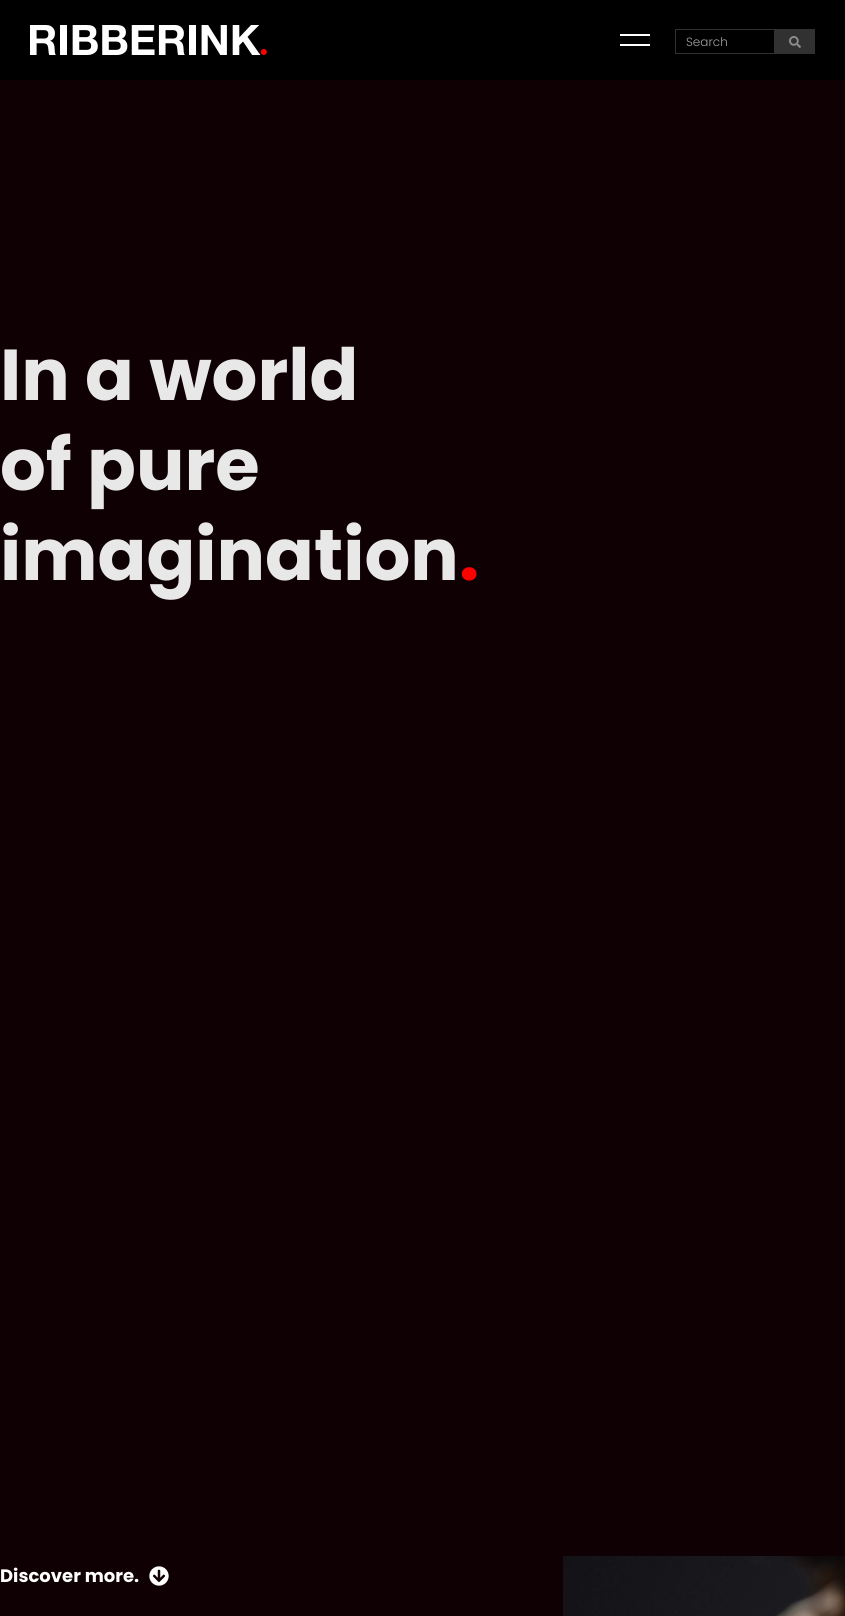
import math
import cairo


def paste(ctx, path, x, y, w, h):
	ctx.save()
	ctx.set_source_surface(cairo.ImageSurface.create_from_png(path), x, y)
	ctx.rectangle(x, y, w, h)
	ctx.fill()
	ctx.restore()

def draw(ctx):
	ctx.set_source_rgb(0.059, 0, 0.012)
	ctx.paint()
	ctx.set_source_rgb(0, 0, 0)
	ctx.rectangle(0, 0, 845, 80)
	ctx.fill()
	paste(ctx, 'media/1.png', 30, 25, 237, 30)
	ctx.set_source_rgb(1, 1, 1)
	ctx.rectangle(620, 34, 30, 2)
	ctx.fill()
	ctx.rectangle(620, 44, 30, 2)
	ctx.fill()
	ctx.rectangle(675.5, 29.5, 99, 24)
	ctx.set_source_rgb(0.192, 0.192, 0.192)
	ctx.set_line_width(1)
	ctx.stroke()
	ctx.select_font_face('Poppins Light')
	ctx.set_font_size(12)
	ctx.set_source_rgb(0.639, 0.639, 0.639)
	ctx.move_to(686, 46)
	ctx.show_text('Search')
	ctx.set_source_rgb(0.192, 0.192, 0.192)
	ctx.rectangle(775, 29, 40, 25)
	ctx.fill()
	paste(ctx, 'media/2.png', 789, 36, 12, 12)
	ctx.select_font_face('Poppins', cairo.FONT_SLANT_NORMAL, cairo.FONT_WEIGHT_BOLD)
	ctx.set_font_size(72)
	ctx.set_source_rgb(0.91, 0.91, 0.91)
	for x, y, s in [
		(0, 400, 'In a world'),
		(0, 490, 'of pure'),
		(0, 580, 'imagination'),
	]:
		ctx.move_to(x, y)
		ctx.show_text(s)
	ctx.set_source_rgb(0.992, 0, 0)
	ctx.move_to(459, 580)
	ctx.show_text('.')
	paste(ctx, 'media/3.png', 149, 1566, 20, 20)
	ctx.set_font_size(18)
	ctx.set_source_rgb(1, 1, 1)
	ctx.move_to(0, 1582)
	ctx.show_text('Discover more.')
	paste(ctx, 'media/4.png', 563, 1556, 282, 60)


surface = cairo.ImageSurface(cairo.FORMAT_RGB24, 845, 1616)
ctx = cairo.Context(surface)
options = cairo.FontOptions()
options.set_hint_metrics(cairo.HINT_METRICS_OFF)
options.set_hint_style(cairo.HINT_STYLE_NONE)
ctx.set_font_options(options)
ctx.set_miter_limit(4)
draw(ctx)
surface.write_to_png('image.png')
